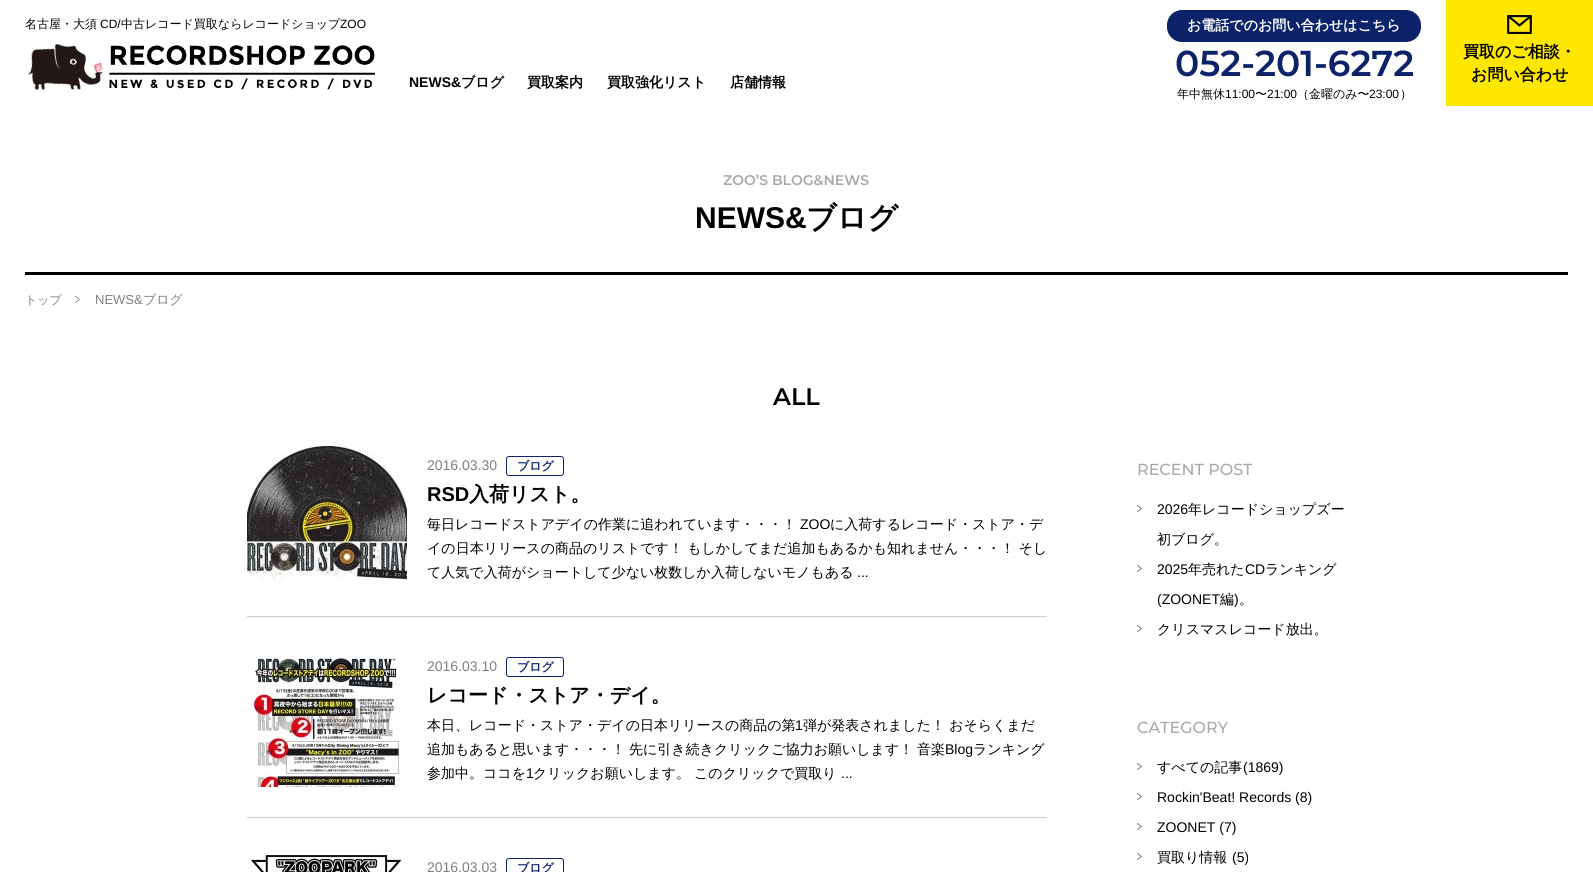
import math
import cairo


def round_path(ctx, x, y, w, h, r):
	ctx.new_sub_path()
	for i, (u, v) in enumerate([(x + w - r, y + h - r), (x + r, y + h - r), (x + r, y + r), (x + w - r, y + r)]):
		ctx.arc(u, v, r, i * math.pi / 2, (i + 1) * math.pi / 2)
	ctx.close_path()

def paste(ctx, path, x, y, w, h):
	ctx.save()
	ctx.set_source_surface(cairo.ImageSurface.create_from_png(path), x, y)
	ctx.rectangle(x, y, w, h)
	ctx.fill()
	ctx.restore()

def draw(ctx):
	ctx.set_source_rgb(1, 1, 1)
	ctx.paint()
	ctx.select_font_face('WenQuanYi Zen Hei Medium')
	ctx.set_font_size(12)
	ctx.set_source_rgb(0, 0, 0)
	ctx.move_to(25, 28)
	ctx.show_text('名古屋・大須')
	ctx.select_font_face('Liberation Sans')
	ctx.move_to(100, 28)
	ctx.show_text('CD/')
	ctx.select_font_face('WenQuanYi Zen Hei Medium')
	ctx.move_to(121, 28)
	ctx.show_text('中古レコード買取ならレコードショップ')
	ctx.select_font_face('Liberation Sans')
	ctx.move_to(340, 28)
	ctx.show_text('ZOO')
	paste(ctx, 'media/1.png', 27, 44, 348, 47)
	ctx.select_font_face('Liberation Sans', cairo.FONT_SLANT_NORMAL, cairo.FONT_WEIGHT_BOLD)
	ctx.set_font_size(14)
	ctx.move_to(409, 87)
	ctx.show_text('NEWS&')
	ctx.select_font_face('WenQuanYi Zen Hei', cairo.FONT_SLANT_NORMAL, cairo.FONT_WEIGHT_BOLD)
	for x, y, s in [
		(461, 87, 'ブログ'),
		(527, 87, '買取案内'),
		(607, 87, '買取強化リスト'),
		(730, 87, '店舗情報'),
	]:
		ctx.move_to(x, y)
		ctx.show_text(s)
	ctx.set_source_rgb(0.051, 0.137, 0.412)
	round_path(ctx, 1167, 10, 254, 32, 15)
	ctx.fill()
	ctx.set_source_rgb(1, 1, 1)
	ctx.move_to(1187, 30)
	ctx.show_text('お電話でのお問い合わせはこちら')
	ctx.select_font_face('Montserrat SemiBold')
	ctx.set_font_size(36)
	ctx.set_source_rgb(0.051, 0.137, 0.412)
	ctx.move_to(1175, 76)
	ctx.show_text('052-201-6272')
	ctx.select_font_face('WenQuanYi Zen Hei Medium')
	ctx.set_font_size(12)
	ctx.set_source_rgb(0, 0, 0)
	ctx.move_to(1177, 98)
	ctx.show_text('年中無休')
	ctx.select_font_face('Liberation Sans')
	ctx.move_to(1225, 98)
	ctx.show_text('11:00')
	ctx.select_font_face('WenQuanYi Zen Hei Medium')
	ctx.move_to(1255, 98)
	ctx.show_text('〜')
	ctx.select_font_face('Liberation Sans')
	ctx.move_to(1267, 98)
	ctx.show_text('21:00')
	ctx.select_font_face('WenQuanYi Zen Hei Medium')
	ctx.move_to(1297, 98)
	ctx.show_text('（金曜のみ〜')
	ctx.select_font_face('Liberation Sans')
	ctx.move_to(1369, 98)
	ctx.show_text('23:00')
	ctx.select_font_face('WenQuanYi Zen Hei Medium')
	ctx.move_to(1400, 98)
	ctx.show_text('）')
	ctx.set_source_rgb(1, 0.906, 0)
	ctx.rectangle(1446, 0, 147, 106)
	ctx.fill()
	paste(ctx, 'media/2.png', 1507, 15, 25, 19)
	ctx.select_font_face('WenQuanYi Zen Hei', cairo.FONT_SLANT_NORMAL, cairo.FONT_WEIGHT_BOLD)
	ctx.set_font_size(16)
	ctx.set_source_rgb(0, 0, 0)
	ctx.move_to(1463, 57)
	ctx.show_text('買取のご相談・')
	ctx.move_to(1471, 80)
	ctx.show_text('お問い合わせ')
	ctx.rectangle(25, 272, 1543, 3)
	ctx.fill()
	ctx.select_font_face('Montserrat SemiBold')
	ctx.set_font_size(14)
	ctx.set_source_rgb(0.659, 0.659, 0.659)
	ctx.move_to(723, 185)
	ctx.show_text('ZOO’S BLOG&NEWS')
	ctx.select_font_face('Liberation Sans', cairo.FONT_SLANT_NORMAL, cairo.FONT_WEIGHT_BOLD)
	ctx.set_font_size(30)
	ctx.set_source_rgb(0, 0, 0)
	ctx.move_to(695, 228)
	ctx.show_text('NEWS&')
	ctx.select_font_face('WenQuanYi Zen Hei', cairo.FONT_SLANT_NORMAL, cairo.FONT_WEIGHT_BOLD)
	ctx.move_to(806, 228)
	ctx.show_text('ブログ')
	ctx.select_font_face('WenQuanYi Zen Hei Medium')
	ctx.set_font_size(12)
	ctx.set_source_rgb(0.502, 0.502, 0.502)
	ctx.move_to(25, 304)
	ctx.show_text('トップ')
	paste(ctx, 'media/3.png', 75, 296, 5, 7)
	ctx.select_font_face('Liberation Sans')
	ctx.set_font_size(13)
	ctx.move_to(95, 304)
	ctx.show_text('NEWS&')
	ctx.select_font_face('WenQuanYi Zen Hei Medium')
	ctx.move_to(143, 304)
	ctx.show_text('ブログ')
	ctx.select_font_face('Montserrat SemiBold')
	ctx.set_font_size(24)
	ctx.set_source_rgb(0, 0, 0)
	ctx.move_to(773, 405)
	ctx.show_text('ALL')
	ctx.set_source_rgb(0.8, 0.8, 0.8)
	ctx.rectangle(247, 616, 800, 1)
	ctx.fill()
	paste(ctx, 'media/4.png', 247, 446, 160, 140)
	ctx.select_font_face('Liberation Sans')
	ctx.set_font_size(14)
	ctx.set_source_rgb(0.502, 0.502, 0.502)
	ctx.move_to(427, 470)
	ctx.show_text('2016.03.30')
	round_path(ctx, 506.5, 456.5, 57, 19, 2.5)
	ctx.set_source_rgb(0.051, 0.137, 0.412)
	ctx.set_line_width(1)
	ctx.stroke()
	ctx.select_font_face('WenQuanYi Zen Hei', cairo.FONT_SLANT_NORMAL, cairo.FONT_WEIGHT_BOLD)
	ctx.set_font_size(12)
	ctx.move_to(517, 470)
	ctx.show_text('ブログ')
	ctx.select_font_face('Liberation Sans', cairo.FONT_SLANT_NORMAL, cairo.FONT_WEIGHT_BOLD)
	ctx.set_font_size(20)
	ctx.set_source_rgb(0, 0, 0)
	ctx.move_to(427, 501)
	ctx.show_text('RSD')
	ctx.select_font_face('WenQuanYi Zen Hei', cairo.FONT_SLANT_NORMAL, cairo.FONT_WEIGHT_BOLD)
	ctx.move_to(469, 501)
	ctx.show_text('入荷リスト。')
	ctx.select_font_face('WenQuanYi Zen Hei Medium')
	ctx.set_font_size(14)
	ctx.move_to(427, 529)
	ctx.show_text('毎日レコードストアデイの作業に追われています・・・！')
	ctx.select_font_face('Liberation Sans')
	ctx.move_to(800, 529)
	ctx.show_text('ZOO')
	ctx.select_font_face('WenQuanYi Zen Hei Medium')
	for x, y, s in [
		(830, 529, 'に入荷するレコード・ストア・デ'),
		(427, 553, 'イの日本リリースの商品のリストです！ もしかしてまだ追加もあるかも知れません・・・！ そし'),
		(427, 577, 'て人気で入荷がショートして少ない枚数しか入荷しないモノもある'),
	]:
		ctx.move_to(x, y)
		ctx.show_text(s)
	ctx.select_font_face('Liberation Sans')
	ctx.move_to(857, 577)
	ctx.show_text('...')
	ctx.set_source_rgb(0.8, 0.8, 0.8)
	ctx.rectangle(247, 817, 800, 1)
	ctx.fill()
	paste(ctx, 'media/5.png', 247, 647, 160, 140)
	ctx.set_source_rgb(0.502, 0.502, 0.502)
	ctx.move_to(427, 671)
	ctx.show_text('2016.03.10')
	round_path(ctx, 506.5, 657.5, 57, 19, 2.5)
	ctx.set_source_rgb(0.051, 0.137, 0.412)
	ctx.stroke()
	ctx.select_font_face('WenQuanYi Zen Hei', cairo.FONT_SLANT_NORMAL, cairo.FONT_WEIGHT_BOLD)
	ctx.set_font_size(12)
	ctx.move_to(517, 671)
	ctx.show_text('ブログ')
	ctx.set_font_size(20)
	ctx.set_source_rgb(0, 0, 0)
	ctx.move_to(427, 702)
	ctx.show_text('レコード・ストア・デイ。')
	ctx.select_font_face('WenQuanYi Zen Hei Medium')
	ctx.set_font_size(14)
	ctx.move_to(427, 730)
	ctx.show_text('本日、レコード・ストア・デイの日本リリースの商品の第')
	ctx.select_font_face('Liberation Sans')
	ctx.move_to(795, 730)
	ctx.show_text('1')
	ctx.select_font_face('WenQuanYi Zen Hei Medium')
	for x, y, s in [
		(803, 730, '弾が発表されました！ おそらくまだ'),
		(427, 754, '追加もあると思います・・・！'),
		(629, 754, '先に引き続きクリックご協力お願いします！'),
		(917, 754, '音楽'),
	]:
		ctx.move_to(x, y)
		ctx.show_text(s)
	ctx.select_font_face('Liberation Sans')
	ctx.move_to(945, 754)
	ctx.show_text('Blog')
	ctx.select_font_face('WenQuanYi Zen Hei Medium')
	ctx.move_to(973, 754)
	ctx.show_text('ランキング')
	ctx.move_to(427, 778)
	ctx.show_text('参加中。ココを')
	ctx.select_font_face('Liberation Sans')
	ctx.move_to(526, 778)
	ctx.show_text('1')
	ctx.select_font_face('WenQuanYi Zen Hei Medium')
	ctx.move_to(533, 778)
	ctx.show_text('クリックお願いします。')
	ctx.move_to(694, 778)
	ctx.show_text('このクリックで買取り')
	ctx.select_font_face('Liberation Sans')
	ctx.move_to(841, 778)
	ctx.show_text('...')
	paste(ctx, 'media/6.png', 247, 848, 160, 24)
	ctx.set_source_rgb(0.502, 0.502, 0.502)
	ctx.move_to(427, 872)
	ctx.show_text('2016.03.03')
	round_path(ctx, 506.5, 858.5, 57, 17, 2.5)
	ctx.set_source_rgb(0.051, 0.137, 0.412)
	ctx.stroke()
	ctx.select_font_face('WenQuanYi Zen Hei', cairo.FONT_SLANT_NORMAL, cairo.FONT_WEIGHT_BOLD)
	ctx.set_font_size(12)
	ctx.move_to(517, 872)
	ctx.show_text('ブログ')
	ctx.select_font_face('Montserrat Medium')
	ctx.set_font_size(16)
	ctx.set_source_rgb(0.659, 0.659, 0.659)
	ctx.move_to(1137, 475)
	ctx.show_text('RECENT POST')
	ctx.new_path()
	ctx.move_to(1137.5, 505.5)
	ctx.line_to(1141.5, 508.5)
	ctx.line_to(1137.5, 511.5)
	ctx.set_source_rgb(0.502, 0.502, 0.502)
	ctx.set_line_cap(cairo.LINE_CAP_ROUND)
	ctx.set_line_join(cairo.LINE_JOIN_ROUND)
	ctx.stroke()
	ctx.select_font_face('Liberation Sans')
	ctx.set_font_size(14)
	ctx.set_source_rgb(0, 0, 0)
	ctx.move_to(1157, 514)
	ctx.show_text('2026')
	ctx.select_font_face('WenQuanYi Zen Hei Medium')
	ctx.move_to(1188, 514)
	ctx.show_text('年レコードショップズー')
	ctx.move_to(1157, 544)
	ctx.show_text('初ブログ。')
	ctx.new_path()
	ctx.move_to(1137.5, 565.5)
	ctx.line_to(1141.5, 568.5)
	ctx.line_to(1137.5, 571.5)
	ctx.set_source_rgb(0.502, 0.502, 0.502)
	ctx.stroke()
	ctx.select_font_face('Liberation Sans')
	ctx.set_source_rgb(0, 0, 0)
	ctx.move_to(1157, 574)
	ctx.show_text('2025')
	ctx.select_font_face('WenQuanYi Zen Hei Medium')
	ctx.move_to(1188, 574)
	ctx.show_text('年売れた')
	ctx.select_font_face('Liberation Sans')
	ctx.move_to(1245, 574)
	ctx.show_text('CD')
	ctx.select_font_face('WenQuanYi Zen Hei Medium')
	ctx.move_to(1265, 574)
	ctx.show_text('ランキング')
	ctx.select_font_face('Liberation Sans')
	ctx.move_to(1157, 604)
	ctx.show_text('(ZOONET')
	ctx.select_font_face('WenQuanYi Zen Hei Medium')
	ctx.move_to(1220, 604)
	ctx.show_text('編')
	ctx.select_font_face('Liberation Sans')
	ctx.move_to(1234, 604)
	ctx.show_text(')')
	ctx.select_font_face('WenQuanYi Zen Hei Medium')
	ctx.move_to(1239, 604)
	ctx.show_text('。')
	ctx.new_path()
	ctx.move_to(1137.5, 625.5)
	ctx.line_to(1141.5, 628.5)
	ctx.line_to(1137.5, 631.5)
	ctx.set_source_rgb(0.502, 0.502, 0.502)
	ctx.stroke()
	ctx.set_source_rgb(0, 0, 0)
	ctx.move_to(1157, 634)
	ctx.show_text('クリスマスレコード放出。')
	ctx.select_font_face('Montserrat Medium')
	ctx.set_font_size(16)
	ctx.set_source_rgb(0.659, 0.659, 0.659)
	ctx.move_to(1137, 733)
	ctx.show_text('CATEGORY')
	ctx.new_path()
	ctx.move_to(1137.5, 763.5)
	ctx.line_to(1141.5, 766.5)
	ctx.line_to(1137.5, 769.5)
	ctx.move_to(1137.5, 793.5)
	ctx.line_to(1141.5, 796.5)
	ctx.line_to(1137.5, 799.5)
	ctx.set_source_rgb(0.502, 0.502, 0.502)
	ctx.stroke()
	ctx.select_font_face('WenQuanYi Zen Hei Medium')
	ctx.set_font_size(14)
	ctx.set_source_rgb(0, 0, 0)
	ctx.move_to(1157, 772)
	ctx.show_text('すべての記事')
	ctx.select_font_face('Liberation Sans')
	ctx.move_to(1243, 772)
	ctx.show_text('(1869)')
	ctx.move_to(1157, 802)
	ctx.show_text('Rockin\'Beat! Records (8)')
	ctx.new_path()
	ctx.move_to(1137.5, 823.5)
	ctx.line_to(1141.5, 826.5)
	ctx.line_to(1137.5, 829.5)
	ctx.move_to(1137.5, 853.5)
	ctx.line_to(1141.5, 856.5)
	ctx.line_to(1137.5, 859.5)
	ctx.set_source_rgb(0.502, 0.502, 0.502)
	ctx.stroke()
	ctx.set_source_rgb(0, 0, 0)
	ctx.move_to(1157, 832)
	ctx.show_text('ZOONET (7)')
	ctx.select_font_face('WenQuanYi Zen Hei Medium')
	ctx.move_to(1157, 862)
	ctx.show_text('買取り情報')
	ctx.select_font_face('Liberation Sans')
	ctx.move_to(1232, 862)
	ctx.show_text('(5)')


surface = cairo.ImageSurface(cairo.FORMAT_RGB24, 1593, 872)
ctx = cairo.Context(surface)
options = cairo.FontOptions()
options.set_hint_metrics(cairo.HINT_METRICS_OFF)
options.set_hint_style(cairo.HINT_STYLE_NONE)
ctx.set_font_options(options)
ctx.set_miter_limit(4)
draw(ctx)
surface.write_to_png('image.png')
